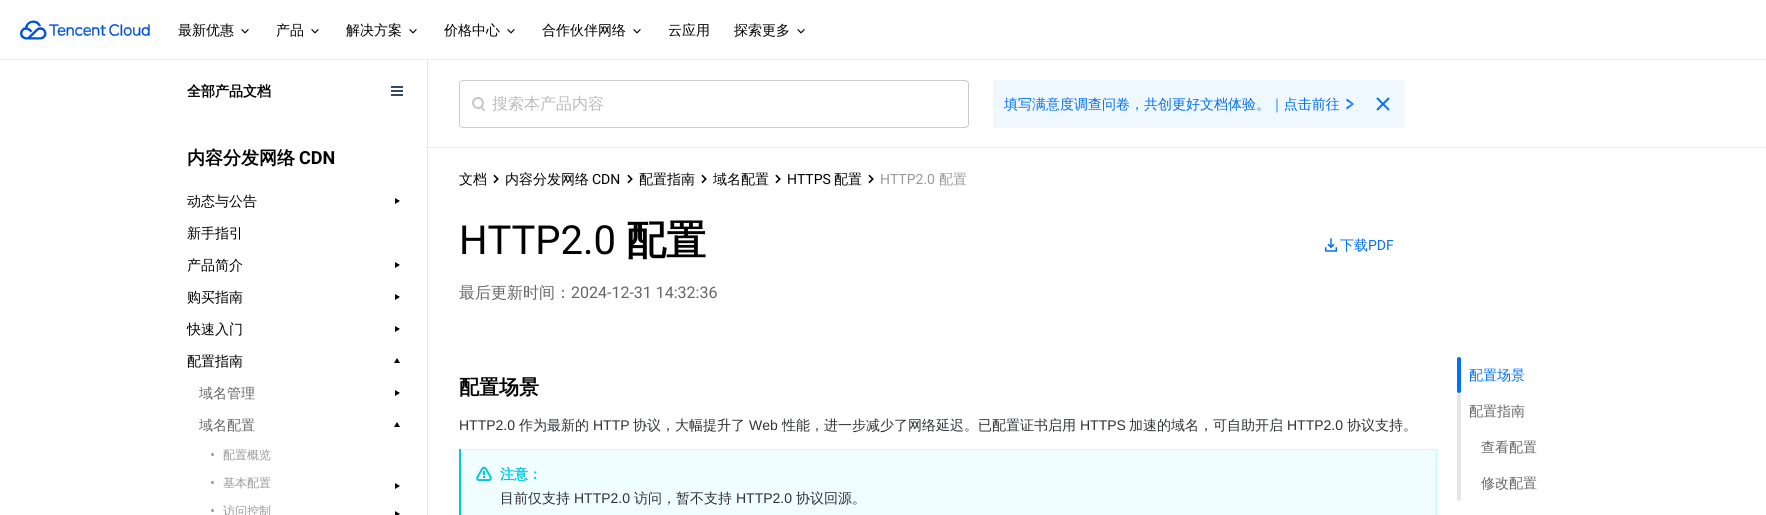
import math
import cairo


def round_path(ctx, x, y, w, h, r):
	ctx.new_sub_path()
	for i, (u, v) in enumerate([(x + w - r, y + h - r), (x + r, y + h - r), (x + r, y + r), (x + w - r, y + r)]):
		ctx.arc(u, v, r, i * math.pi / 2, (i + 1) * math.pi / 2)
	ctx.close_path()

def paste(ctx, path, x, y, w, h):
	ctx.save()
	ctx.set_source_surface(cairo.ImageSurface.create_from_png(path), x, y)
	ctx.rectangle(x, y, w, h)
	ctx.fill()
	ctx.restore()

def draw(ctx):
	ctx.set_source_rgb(1, 1, 1)
	ctx.paint()
	ctx.set_source_rgb(0.933, 0.941, 0.961)
	ctx.rectangle(0, 59, 1766, 1)
	ctx.fill()
	paste(ctx, 'media/1.png', 20, 20, 130, 20)
	ctx.select_font_face('WenQuanYi Zen Hei Medium')
	ctx.set_font_size(14)
	ctx.set_source_rgb(0, 0, 0)
	ctx.move_to(178, 35)
	ctx.show_text('最新优惠')
	paste(ctx, 'media/2.png', 241, 29, 8, 5)
	ctx.move_to(276, 35)
	ctx.show_text('产品')
	paste(ctx, 'media/2.png', 311, 29, 8, 5)
	ctx.move_to(346, 35)
	ctx.show_text('解决方案')
	paste(ctx, 'media/2.png', 409, 29, 8, 5)
	ctx.move_to(444, 35)
	ctx.show_text('价格中心')
	paste(ctx, 'media/2.png', 507, 29, 8, 5)
	ctx.move_to(542, 35)
	ctx.show_text('合作伙伴网络')
	paste(ctx, 'media/2.png', 633, 29, 8, 5)
	ctx.move_to(668, 35)
	ctx.show_text('云应用')
	ctx.move_to(734, 35)
	ctx.show_text('探索更多')
	paste(ctx, 'media/2.png', 797, 29, 8, 5)
	ctx.set_source_rgb(0.898, 0.91, 0.929)
	ctx.rectangle(427, 60, 1, 455)
	ctx.fill()
	ctx.select_font_face('WenQuanYi Zen Hei', cairo.FONT_SLANT_NORMAL, cairo.FONT_WEIGHT_BOLD)
	ctx.set_source_rgb(0, 0, 0)
	ctx.move_to(187, 96)
	ctx.show_text('全部产品文档')
	paste(ctx, 'media/3.png', 391, 86, 12, 10)
	ctx.set_font_size(18)
	ctx.move_to(187, 164)
	ctx.show_text('内容分发网络')
	ctx.select_font_face('Roboto', cairo.FONT_SLANT_NORMAL, cairo.FONT_WEIGHT_BOLD)
	ctx.move_to(299, 164)
	ctx.show_text('CDN')
	ctx.select_font_face('WenQuanYi Zen Hei Medium')
	ctx.set_font_size(14)
	ctx.move_to(187, 206)
	ctx.show_text('动态与公告')
	paste(ctx, 'media/4.png', 395, 198, 5, 6)
	ctx.move_to(187, 238)
	ctx.show_text('新手指引')
	ctx.move_to(187, 270)
	ctx.show_text('产品简介')
	paste(ctx, 'media/4.png', 395, 262, 5, 6)
	ctx.move_to(187, 302)
	ctx.show_text('购买指南')
	paste(ctx, 'media/4.png', 395, 294, 5, 6)
	ctx.move_to(187, 334)
	ctx.show_text('快速入门')
	paste(ctx, 'media/4.png', 395, 326, 5, 6)
	ctx.move_to(187, 366)
	ctx.show_text('配置指南')
	paste(ctx, 'media/5.png', 394, 358, 6, 5)
	ctx.set_source_rgb(0.4, 0.4, 0.4)
	ctx.move_to(199, 398)
	ctx.show_text('域名管理')
	paste(ctx, 'media/4.png', 395, 390, 5, 6)
	ctx.move_to(199, 430)
	ctx.show_text('域名配置')
	paste(ctx, 'media/5.png', 394, 422, 6, 5)
	ctx.set_source_rgb(0.6, 0.6, 0.6)
	ctx.arc(212.5, 454.5, 1.5, 0, 2 * math.pi)
	ctx.fill()
	ctx.set_font_size(12)
	ctx.move_to(223, 459)
	ctx.show_text('配置概览')
	ctx.new_path()
	ctx.arc(212.5, 482.5, 1.5, 0, 2 * math.pi)
	ctx.fill()
	ctx.move_to(223, 487)
	ctx.show_text('基本配置')
	paste(ctx, 'media/4.png', 395, 483, 5, 6)
	ctx.arc(212.5, 510.5, 1.5, 0, 2 * math.pi)
	ctx.fill()
	ctx.move_to(223, 515)
	ctx.show_text('访问控制')
	paste(ctx, 'media/6.png', 395, 511, 5, 4)
	round_path(ctx, 459.5, 80.5, 509, 47, 3.5)
	ctx.set_source_rgb(0.8, 0.8, 0.8)
	ctx.set_line_width(1)
	ctx.stroke()
	paste(ctx, 'media/7.png', 472, 97, 13, 14)
	ctx.set_font_size(16)
	ctx.set_source_rgb(0.733, 0.733, 0.733)
	ctx.move_to(492, 109)
	ctx.show_text('搜索本产品内容')
	ctx.set_source_rgb(0.937, 0.965, 1)
	ctx.rectangle(993, 80, 412, 48)
	ctx.fill()
	ctx.set_font_size(14)
	ctx.set_source_rgb(0, 0.431, 1)
	ctx.move_to(1004, 109)
	ctx.show_text('填写满意度调查问卷，共创更好文档体验。｜点击前往')
	paste(ctx, 'media/8.png', 1346, 98, 8, 12)
	paste(ctx, 'media/9.png', 1376, 97, 14, 14)
	ctx.set_source_rgb(0.898, 0.91, 0.929)
	ctx.rectangle(427, 147, 1339, 1)
	ctx.fill()
	ctx.set_source_rgb(0, 0, 0)
	ctx.move_to(459, 184)
	ctx.show_text('文档')
	paste(ctx, 'media/10.png', 493, 174, 6, 10)
	ctx.move_to(505, 184)
	ctx.show_text('内容分发网络')
	ctx.select_font_face('Roboto')
	ctx.move_to(592, 184)
	ctx.show_text('CDN')
	paste(ctx, 'media/10.png', 627, 174, 6, 10)
	ctx.select_font_face('WenQuanYi Zen Hei Medium')
	ctx.move_to(639, 184)
	ctx.show_text('配置指南')
	paste(ctx, 'media/10.png', 701, 174, 6, 10)
	ctx.move_to(713, 184)
	ctx.show_text('域名配置')
	paste(ctx, 'media/10.png', 775, 174, 6, 10)
	ctx.select_font_face('Roboto')
	ctx.move_to(787, 184)
	ctx.show_text('HTTPS')
	ctx.select_font_face('WenQuanYi Zen Hei Medium')
	ctx.move_to(834, 184)
	ctx.show_text('配置')
	paste(ctx, 'media/10.png', 868, 174, 6, 10)
	ctx.select_font_face('Roboto')
	ctx.set_source_rgb(0.6, 0.6, 0.6)
	ctx.move_to(880, 184)
	ctx.show_text('HTTP2.0')
	ctx.select_font_face('WenQuanYi Zen Hei Medium')
	ctx.move_to(939, 184)
	ctx.show_text('配置')
	ctx.select_font_face('Roboto')
	ctx.set_font_size(40)
	ctx.set_source_rgb(0, 0, 0)
	ctx.move_to(459, 254)
	ctx.show_text('HTTP2.0')
	ctx.select_font_face('WenQuanYi Zen Hei', cairo.FONT_SLANT_NORMAL, cairo.FONT_WEIGHT_BOLD)
	ctx.move_to(626, 254)
	ctx.show_text('配置')
	paste(ctx, 'media/11.png', 1325, 238, 12, 14)
	ctx.select_font_face('WenQuanYi Zen Hei Medium')
	ctx.set_font_size(14)
	ctx.set_source_rgb(0, 0.431, 1)
	ctx.move_to(1340, 250)
	ctx.show_text('下载')
	ctx.select_font_face('Roboto')
	ctx.move_to(1368, 250)
	ctx.show_text('PDF')
	ctx.select_font_face('WenQuanYi Zen Hei Medium')
	ctx.set_font_size(16)
	ctx.set_source_rgb(0.4, 0.4, 0.4)
	ctx.move_to(459, 298)
	ctx.show_text('最后更新时间：')
	ctx.select_font_face('Roboto')
	ctx.move_to(571, 298)
	ctx.show_text('2024-12-31 14:32:36')
	ctx.select_font_face('WenQuanYi Zen Hei', cairo.FONT_SLANT_NORMAL, cairo.FONT_WEIGHT_BOLD)
	ctx.set_font_size(20)
	ctx.set_source_rgb(0, 0, 0)
	ctx.move_to(459, 394)
	ctx.show_text('配置场景')
	ctx.select_font_face('Liberation Sans')
	ctx.set_font_size(14)
	ctx.set_source_rgb(0.18, 0.188, 0.2)
	ctx.move_to(459, 430)
	ctx.show_text('HTTP2.0')
	ctx.select_font_face('WenQuanYi Zen Hei Medium')
	ctx.move_to(519, 430)
	ctx.show_text('作为最新的')
	ctx.select_font_face('Liberation Sans')
	ctx.move_to(593, 430)
	ctx.show_text('HTTP')
	ctx.select_font_face('WenQuanYi Zen Hei Medium')
	ctx.move_to(633, 430)
	ctx.show_text('协议，大幅提升了')
	ctx.select_font_face('Liberation Sans')
	ctx.move_to(749, 430)
	ctx.show_text('Web')
	ctx.select_font_face('WenQuanYi Zen Hei Medium')
	ctx.move_to(782, 430)
	ctx.show_text('性能，进一步减少了网络延迟。已配置证书启用')
	ctx.select_font_face('Liberation Sans')
	ctx.move_to(1080, 430)
	ctx.show_text('HTTPS')
	ctx.select_font_face('WenQuanYi Zen Hei Medium')
	ctx.move_to(1129, 430)
	ctx.show_text('加速的域名，可自助开启')
	ctx.select_font_face('Liberation Sans')
	ctx.move_to(1287, 430)
	ctx.show_text('HTTP2.0')
	ctx.select_font_face('WenQuanYi Zen Hei Medium')
	ctx.move_to(1347, 430)
	ctx.show_text('协议支持。')
	ctx.set_source_rgb(0.945, 0.996, 1)
	round_path(ctx, 459.5, 449.5, 977, 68, 1.5)
	ctx.fill_preserve()
	ctx.set_source_rgb(0.776, 0.98, 1)
	ctx.stroke()
	ctx.set_source_rgb(0.016, 0.784, 0.863)
	ctx.rectangle(459, 449, 2, 66)
	ctx.fill()
	paste(ctx, 'media/12.png', 476, 466, 16, 16)
	ctx.select_font_face('WenQuanYi Zen Hei', cairo.FONT_SLANT_NORMAL, cairo.FONT_WEIGHT_BOLD)
	ctx.move_to(500, 479)
	ctx.show_text('注意：')
	ctx.select_font_face('WenQuanYi Zen Hei Medium')
	ctx.set_source_rgb(0.18, 0.188, 0.2)
	ctx.move_to(500, 503)
	ctx.show_text('目前仅支持')
	ctx.select_font_face('Liberation Sans')
	ctx.move_to(574, 503)
	ctx.show_text('HTTP2.0')
	ctx.select_font_face('WenQuanYi Zen Hei Medium')
	ctx.move_to(634, 503)
	ctx.show_text('访问，暂不支持')
	ctx.select_font_face('Liberation Sans')
	ctx.move_to(736, 503)
	ctx.show_text('HTTP2.0')
	ctx.select_font_face('WenQuanYi Zen Hei Medium')
	ctx.move_to(796, 503)
	ctx.show_text('协议回源。')
	ctx.set_source_rgb(0.902, 0.902, 0.902)
	round_path(ctx, 1457, 357, 4, 144, 2)
	ctx.fill()
	ctx.set_source_rgb(0, 0.431, 1)
	round_path(ctx, 1457, 357, 4, 36, 2)
	ctx.fill()
	ctx.move_to(1469, 380)
	ctx.show_text('配置场景')
	ctx.set_source_rgb(0.4, 0.4, 0.4)
	for x, y, s in [
		(1469, 416, '配置指南'),
		(1481, 452, '查看配置'),
		(1481, 488, '修改配置'),
	]:
		ctx.move_to(x, y)
		ctx.show_text(s)


surface = cairo.ImageSurface(cairo.FORMAT_RGB24, 1766, 515)
ctx = cairo.Context(surface)
options = cairo.FontOptions()
options.set_hint_metrics(cairo.HINT_METRICS_OFF)
options.set_hint_style(cairo.HINT_STYLE_NONE)
ctx.set_font_options(options)
ctx.set_miter_limit(4)
draw(ctx)
surface.write_to_png('image.png')
